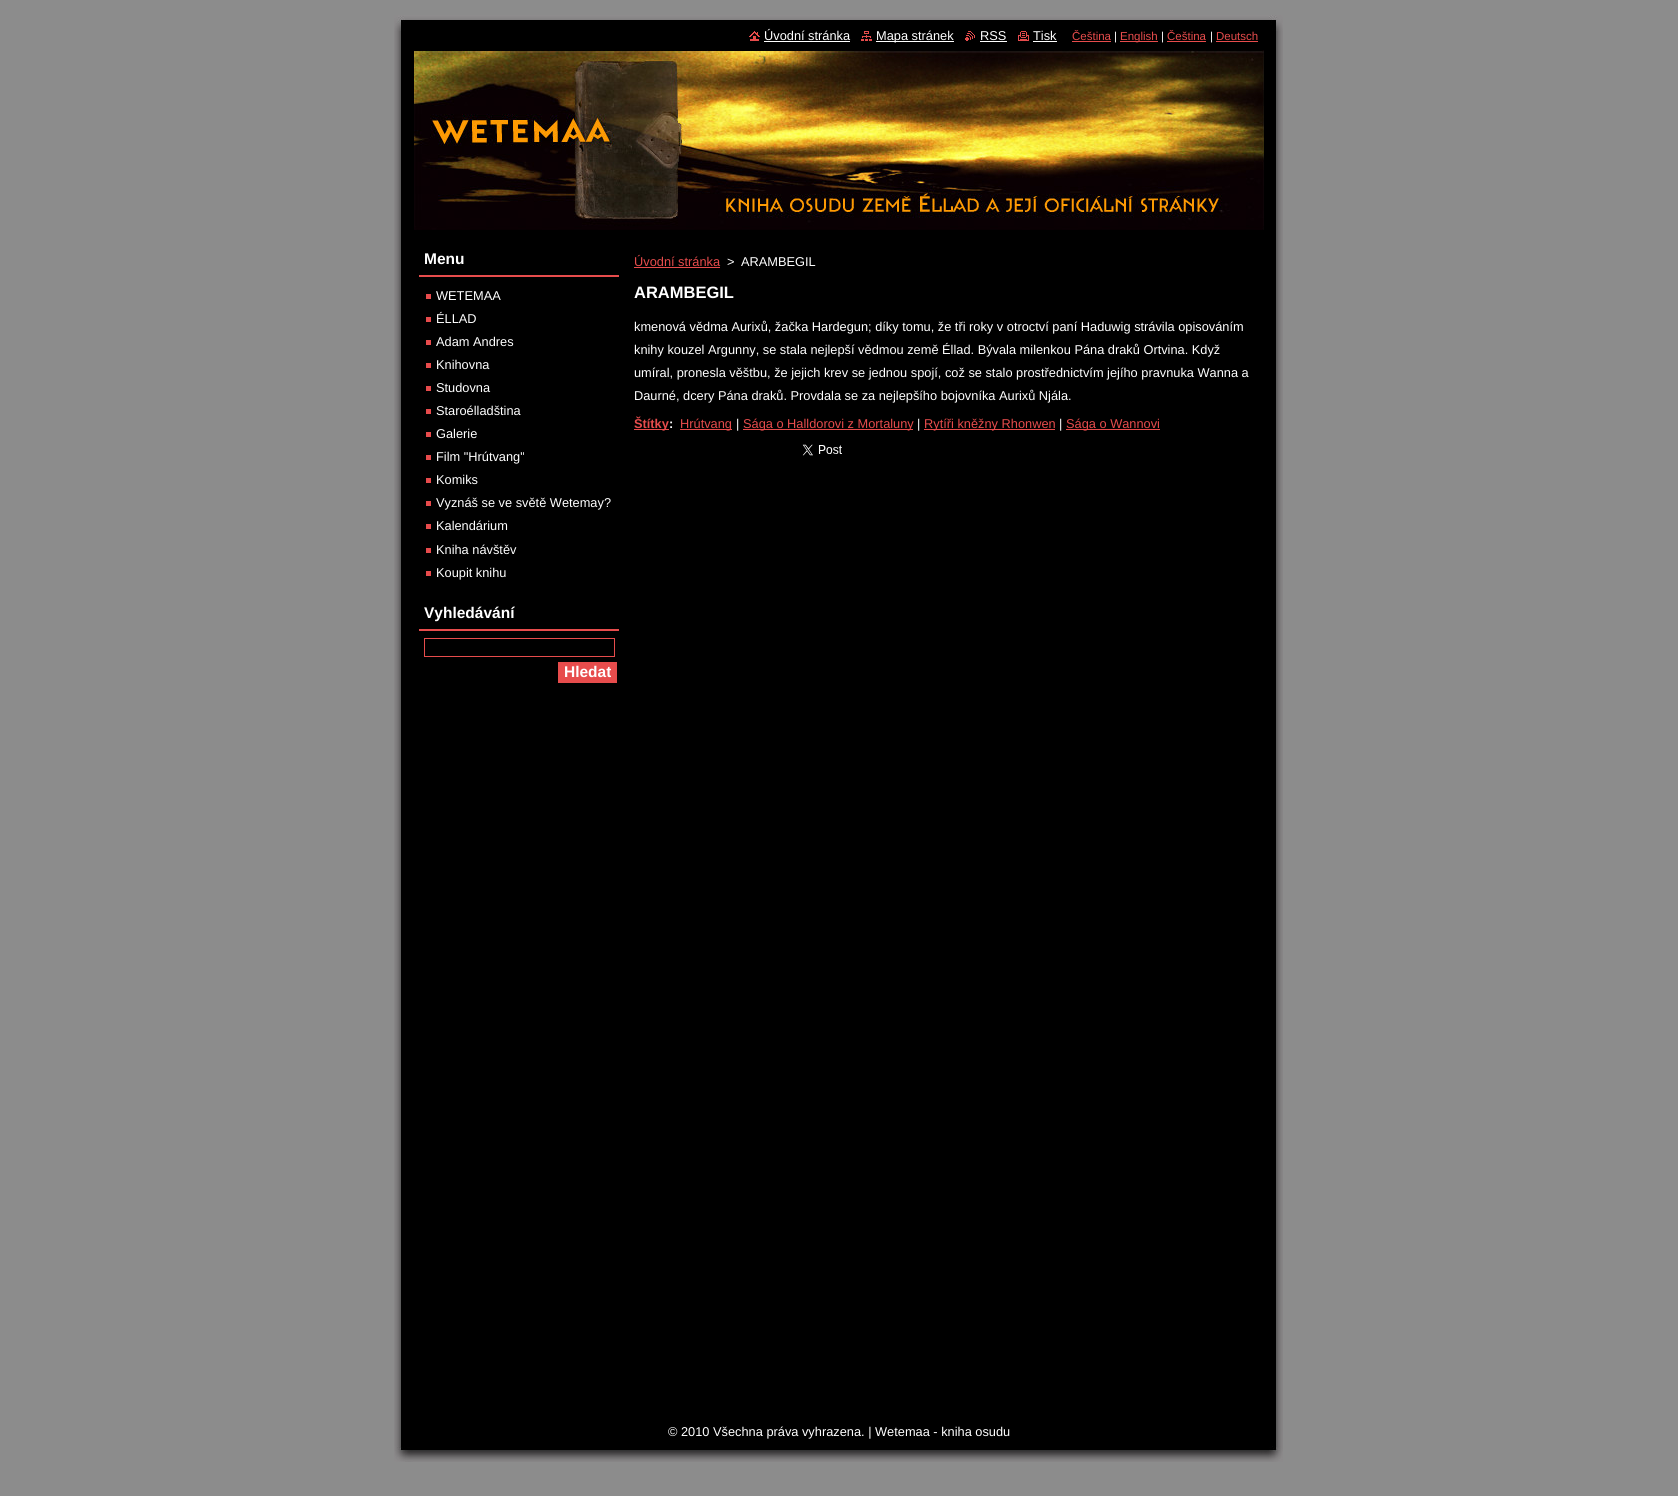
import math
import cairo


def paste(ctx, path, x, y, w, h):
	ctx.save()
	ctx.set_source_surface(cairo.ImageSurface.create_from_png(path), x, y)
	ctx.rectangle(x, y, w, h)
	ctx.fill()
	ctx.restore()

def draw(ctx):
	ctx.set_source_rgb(0.549, 0.549, 0.549)
	ctx.paint()
	paste(ctx, 'media/1.png', 394, 31, 889, 1415)
	paste(ctx, 'media/2.png', 394, 15, 889, 16)
	paste(ctx, 'media/3.png', 749, 31, 11, 10)
	ctx.select_font_face('Liberation Sans')
	ctx.set_font_size(12.8)
	ctx.set_source_rgb(1, 1, 1)
	ctx.move_to(764, 40)
	ctx.show_text('Úvodní stránka')
	ctx.rectangle(764, 41, 86, 1)
	ctx.fill()
	paste(ctx, 'media/4.png', 861, 31, 11, 10)
	ctx.rectangle(876, 41, 78, 1)
	ctx.fill()
	ctx.move_to(876, 40)
	ctx.show_text('Mapa stránek')
	paste(ctx, 'media/5.png', 965, 31, 10, 10)
	ctx.move_to(980, 40)
	ctx.show_text('RSS')
	ctx.rectangle(980, 41, 27, 1)
	ctx.fill()
	paste(ctx, 'media/6.png', 1018, 31, 11, 10)
	ctx.move_to(1033, 40)
	ctx.show_text('Tisk')
	ctx.rectangle(1033, 41, 24, 1)
	ctx.fill()
	ctx.set_font_size(11.5)
	ctx.set_source_rgb(0.906, 0.298, 0.298)
	ctx.move_to(1072, 40)
	ctx.show_text('Čeština')
	ctx.rectangle(1072, 41, 39, 1)
	ctx.fill()
	ctx.set_source_rgb(1, 1, 1)
	ctx.move_to(1114, 40)
	ctx.show_text('|')
	ctx.set_source_rgb(0.906, 0.298, 0.298)
	ctx.rectangle(1120, 41, 38, 1)
	ctx.fill()
	ctx.move_to(1120, 40)
	ctx.show_text('English')
	ctx.set_source_rgb(1, 1, 1)
	ctx.move_to(1161, 40)
	ctx.show_text('|')
	ctx.set_source_rgb(0.906, 0.298, 0.298)
	ctx.move_to(1167, 40)
	ctx.show_text('Čeština')
	ctx.rectangle(1167, 41, 39, 1)
	ctx.fill()
	ctx.set_source_rgb(1, 1, 1)
	ctx.move_to(1210, 40)
	ctx.show_text('|')
	ctx.set_source_rgb(0.906, 0.298, 0.298)
	ctx.move_to(1216, 40)
	ctx.show_text('Deutsch')
	ctx.rectangle(1216, 41, 42, 1)
	ctx.fill()
	paste(ctx, 'media/7.png', 414, 50, 850, 180)
	ctx.rectangle(419, 275, 200, 2)
	ctx.fill()
	ctx.select_font_face('Liberation Sans', cairo.FONT_SLANT_NORMAL, cairo.FONT_WEIGHT_BOLD)
	ctx.set_font_size(15.5)
	ctx.set_source_rgb(1, 1, 1)
	ctx.move_to(424, 264)
	ctx.show_text('Menu')
	ctx.select_font_face('Liberation Sans')
	ctx.set_font_size(12.8)
	ctx.move_to(436, 300)
	ctx.show_text('WETEMAA')
	ctx.set_source_rgb(0.906, 0.294, 0.298)
	ctx.rectangle(426, 294, 5, 5)
	ctx.fill()
	ctx.set_source_rgb(1, 1, 1)
	ctx.move_to(436, 323)
	ctx.show_text('ÉLLAD')
	ctx.set_source_rgb(0.906, 0.294, 0.298)
	ctx.rectangle(426, 317, 5, 5)
	ctx.fill()
	ctx.set_source_rgb(1, 1, 1)
	ctx.move_to(436, 346)
	ctx.show_text('Adam Andres')
	ctx.set_source_rgb(0.906, 0.294, 0.298)
	ctx.rectangle(426, 340, 5, 5)
	ctx.fill()
	ctx.set_source_rgb(1, 1, 1)
	ctx.move_to(436, 369)
	ctx.show_text('Knihovna')
	ctx.set_source_rgb(0.906, 0.294, 0.298)
	ctx.rectangle(426, 363, 5, 5)
	ctx.fill()
	ctx.set_source_rgb(1, 1, 1)
	ctx.move_to(436, 392)
	ctx.show_text('Studovna')
	ctx.set_source_rgb(0.906, 0.294, 0.298)
	ctx.rectangle(426, 386, 5, 5)
	ctx.fill()
	ctx.set_source_rgb(1, 1, 1)
	ctx.move_to(436, 415)
	ctx.show_text('Staroélladština')
	ctx.set_source_rgb(0.906, 0.294, 0.298)
	ctx.rectangle(426, 409, 5, 5)
	ctx.fill()
	ctx.set_source_rgb(1, 1, 1)
	ctx.move_to(436, 438)
	ctx.show_text('Galerie')
	ctx.set_source_rgb(0.906, 0.294, 0.298)
	ctx.rectangle(426, 432, 5, 5)
	ctx.fill()
	ctx.set_source_rgb(1, 1, 1)
	ctx.move_to(436, 461)
	ctx.show_text('Film "Hrútvang"')
	ctx.set_source_rgb(0.906, 0.294, 0.298)
	ctx.rectangle(426, 455, 5, 5)
	ctx.fill()
	ctx.set_source_rgb(1, 1, 1)
	ctx.move_to(436, 484)
	ctx.show_text('Komiks')
	ctx.set_source_rgb(0.906, 0.294, 0.298)
	ctx.rectangle(426, 478, 5, 5)
	ctx.fill()
	ctx.set_source_rgb(1, 1, 1)
	ctx.move_to(436, 507)
	ctx.show_text('Vyznáš se ve světě Wetemay?')
	ctx.set_source_rgb(0.906, 0.294, 0.298)
	ctx.rectangle(426, 501, 5, 5)
	ctx.fill()
	ctx.set_source_rgb(1, 1, 1)
	ctx.move_to(436, 530)
	ctx.show_text('Kalendárium')
	ctx.set_source_rgb(0.906, 0.294, 0.298)
	ctx.rectangle(426, 524, 5, 5)
	ctx.fill()
	ctx.set_source_rgb(1, 1, 1)
	ctx.move_to(436, 554)
	ctx.show_text('Kniha návštěv')
	ctx.set_source_rgb(0.906, 0.294, 0.298)
	ctx.rectangle(426, 548, 5, 5)
	ctx.fill()
	ctx.set_source_rgb(1, 1, 1)
	ctx.move_to(436, 577)
	ctx.show_text('Koupit knihu')
	ctx.set_source_rgb(0.906, 0.294, 0.298)
	ctx.rectangle(426, 571, 5, 5)
	ctx.fill()
	ctx.set_source_rgb(0.906, 0.298, 0.298)
	ctx.rectangle(419, 629, 200, 2)
	ctx.fill()
	ctx.select_font_face('Liberation Sans', cairo.FONT_SLANT_NORMAL, cairo.FONT_WEIGHT_BOLD)
	ctx.set_font_size(15.5)
	ctx.set_source_rgb(1, 1, 1)
	ctx.move_to(424, 618)
	ctx.show_text('Vyhledávání')
	ctx.rectangle(424.5, 638.5, 190, 18)
	ctx.set_source_rgb(0.906, 0.298, 0.298)
	ctx.set_line_width(1)
	ctx.stroke()
	ctx.rectangle(558, 662, 59, 21)
	ctx.fill()
	ctx.set_source_rgb(1, 1, 1)
	ctx.move_to(564, 677)
	ctx.show_text('Hledat')
	ctx.select_font_face('Liberation Sans')
	ctx.set_font_size(12.8)
	ctx.set_source_rgb(0.906, 0.298, 0.298)
	ctx.move_to(634, 266)
	ctx.show_text('Úvodní stránka')
	ctx.rectangle(634, 267, 86, 1)
	ctx.fill()
	ctx.set_source_rgb(1, 1, 1)
	ctx.move_to(727, 266)
	ctx.show_text('>')
	ctx.move_to(741, 266)
	ctx.show_text('ARAMBEGIL')
	ctx.select_font_face('Liberation Sans', cairo.FONT_SLANT_NORMAL, cairo.FONT_WEIGHT_BOLD)
	ctx.set_font_size(16.5)
	ctx.move_to(634, 298)
	ctx.show_text('ARAMBEGIL')
	ctx.select_font_face('Liberation Sans')
	ctx.set_font_size(12.8)
	for x, y, s in [
		(634, 331, 'kmenová vědma Aurixů, žačka Hardegun; díky tomu, že tři roky v otroctví paní Haduwig strávila opisováním'),
		(634, 354, 'knihy kouzel Argunny, se stala nejlepší vědmou země Éllad. Bývala milenkou Pána draků Ortvina. Když'),
		(634, 377, 'umíral, pronesla věštbu, že jejich krev se jednou spojí, což se stalo prostřednictvím jejího pravnuka Wanna a'),
		(634, 400, 'Daurné, dcery Pána draků. Provdala se za nejlepšího bojovníka Aurixů Njála.'),
	]:
		ctx.move_to(x, y)
		ctx.show_text(s)
	ctx.set_source_rgb(0.906, 0.298, 0.298)
	ctx.rectangle(634, 429, 35, 1)
	ctx.fill()
	ctx.select_font_face('Liberation Sans', cairo.FONT_SLANT_NORMAL, cairo.FONT_WEIGHT_BOLD)
	ctx.move_to(634, 428)
	ctx.show_text('Štítky')
	ctx.set_source_rgb(1, 1, 1)
	ctx.move_to(669, 428)
	ctx.show_text(':')
	ctx.set_source_rgb(0.906, 0.298, 0.298)
	ctx.rectangle(680, 429, 52, 1)
	ctx.fill()
	ctx.select_font_face('Liberation Sans')
	ctx.move_to(680, 428)
	ctx.show_text('Hrútvang')
	ctx.set_source_rgb(1, 1, 1)
	ctx.move_to(736, 428)
	ctx.show_text('|')
	ctx.set_source_rgb(0.906, 0.298, 0.298)
	ctx.rectangle(743, 429, 170, 1)
	ctx.fill()
	ctx.move_to(743, 428)
	ctx.show_text('Sága o Halldorovi z Mortaluny')
	ctx.set_source_rgb(1, 1, 1)
	ctx.move_to(917, 428)
	ctx.show_text('|')
	ctx.set_source_rgb(0.906, 0.298, 0.298)
	ctx.rectangle(924, 429, 131, 1)
	ctx.fill()
	ctx.move_to(924, 428)
	ctx.show_text('Rytíři kněžny Rhonwen')
	ctx.set_source_rgb(1, 1, 1)
	ctx.move_to(1059, 428)
	ctx.show_text('|')
	ctx.set_source_rgb(0.906, 0.298, 0.298)
	ctx.rectangle(1066, 429, 94, 1)
	ctx.fill()
	ctx.move_to(1066, 428)
	ctx.show_text('Sága o Wannovi')
	paste(ctx, 'media/8.png', 802, 444, 40, 12)
	paste(ctx, 'media/9.png', 394, 1446, 889, 16)
	ctx.set_source_rgb(1, 1, 1)
	ctx.move_to(668, 1436)
	ctx.show_text('© 2010 Všechna práva vyhrazena. | Wetemaa - kniha osudu')


surface = cairo.ImageSurface(cairo.FORMAT_RGB24, 1678, 1496)
ctx = cairo.Context(surface)
options = cairo.FontOptions()
options.set_hint_metrics(cairo.HINT_METRICS_OFF)
options.set_hint_style(cairo.HINT_STYLE_NONE)
ctx.set_font_options(options)
ctx.set_miter_limit(4)
draw(ctx)
surface.write_to_png('image.png')
